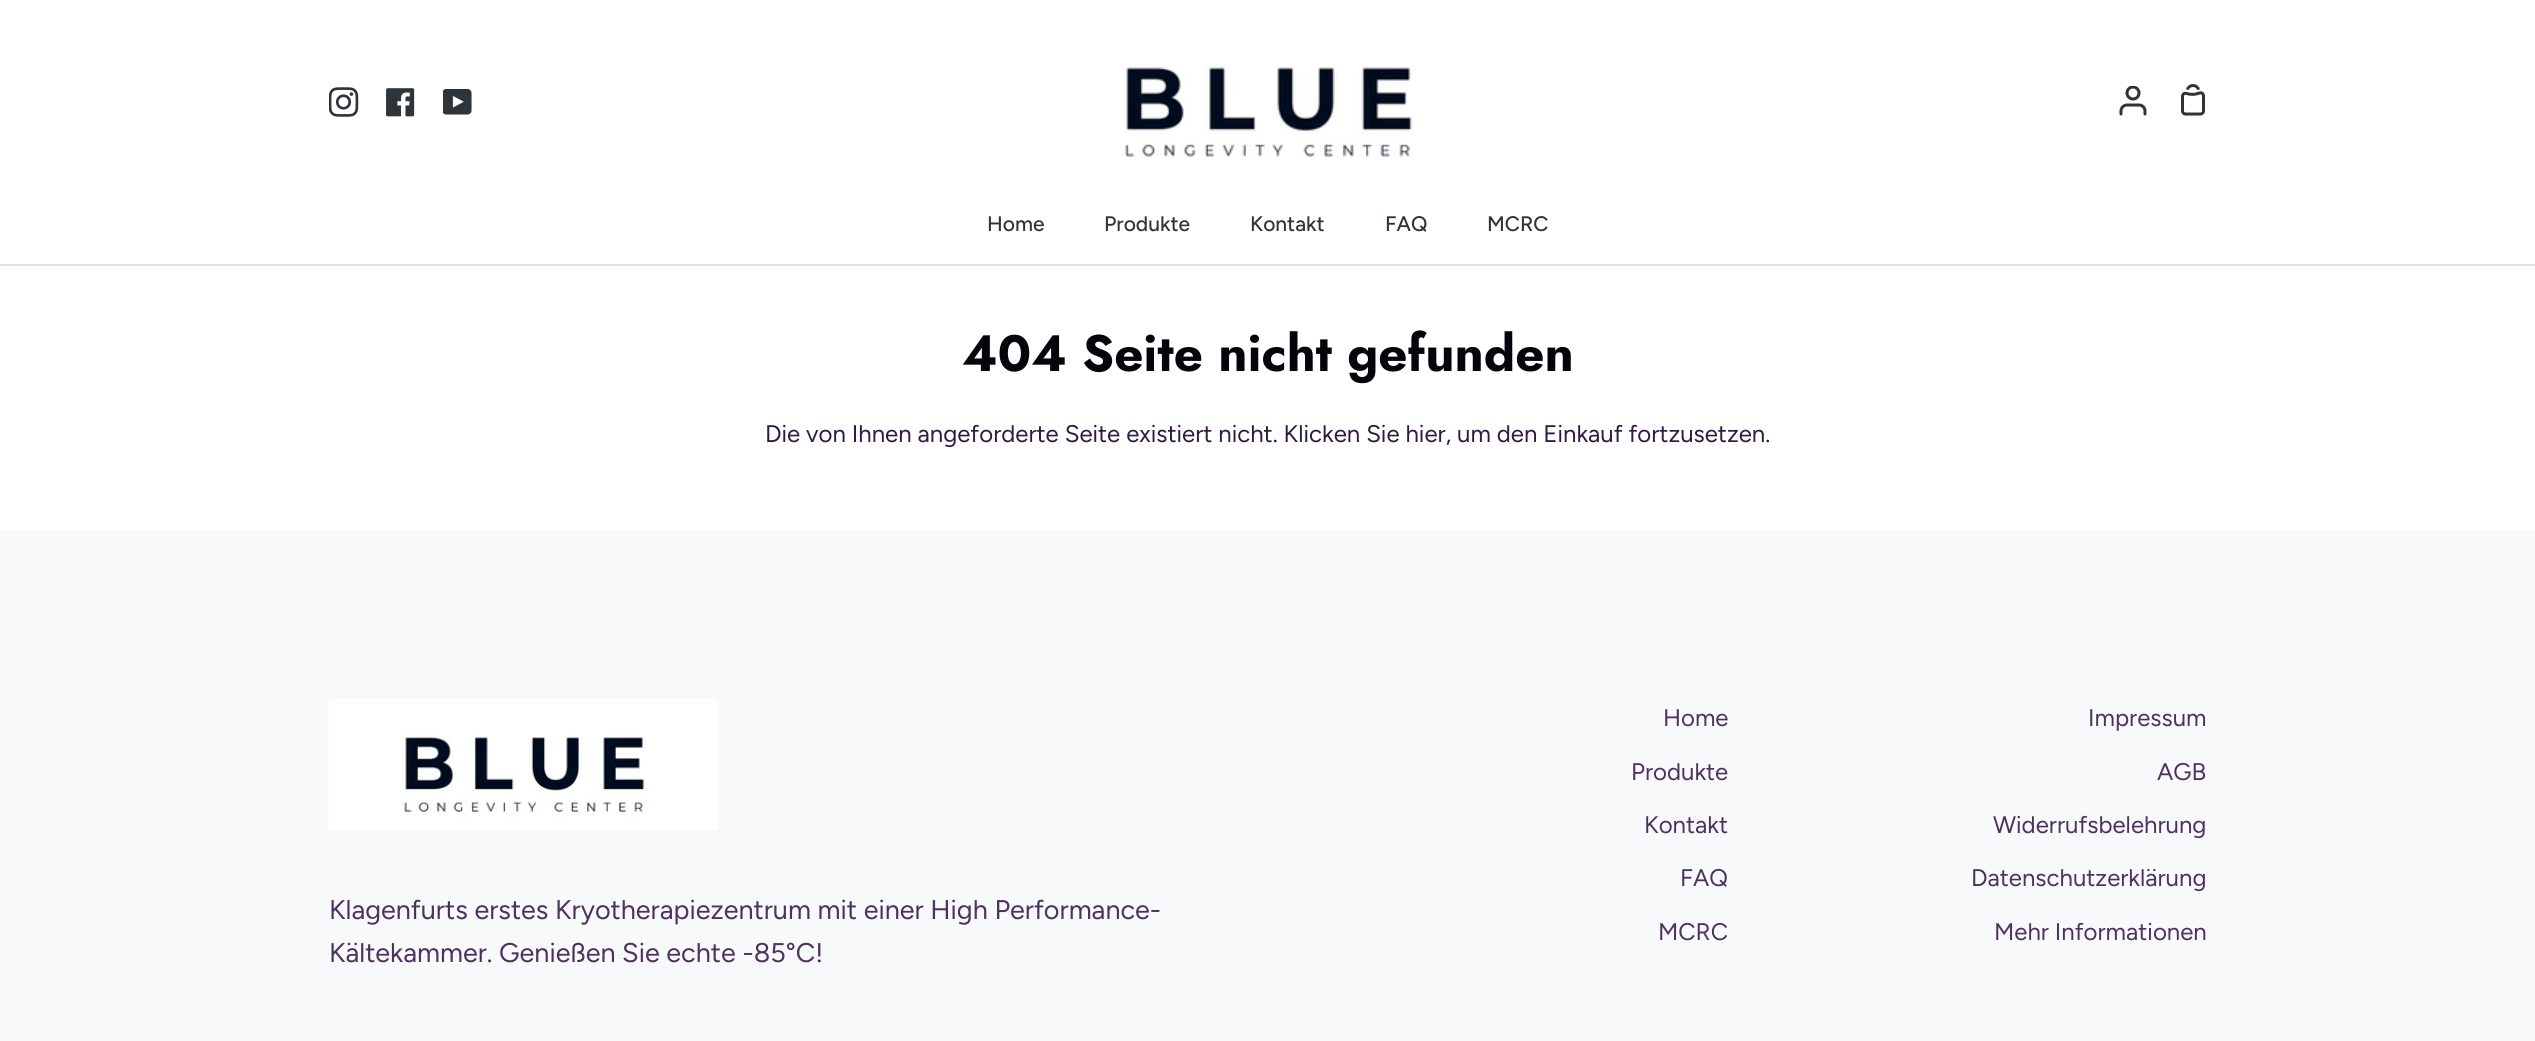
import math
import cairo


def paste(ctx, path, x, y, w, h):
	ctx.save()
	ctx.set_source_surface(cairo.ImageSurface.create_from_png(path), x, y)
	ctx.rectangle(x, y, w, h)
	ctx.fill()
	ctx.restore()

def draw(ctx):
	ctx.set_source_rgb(1, 1, 1)
	ctx.paint()
	ctx.set_source_rgb(0.894, 0.894, 0.894)
	ctx.rectangle(0, 264, 2535, 2)
	ctx.fill()
	paste(ctx, 'media/1.png', 329, 87, 30, 30)
	paste(ctx, 'media/2.png', 386, 88, 29, 29)
	paste(ctx, 'media/3.png', 443, 89, 29, 26)
	paste(ctx, 'media/4.png', 1117, 64, 296, 95)
	paste(ctx, 'media/5.png', 2119, 86, 28, 30)
	paste(ctx, 'media/6.png', 2181, 84, 24, 32)
	ctx.select_font_face('Figtree Medium')
	ctx.set_font_size(21)
	ctx.set_source_rgb(0.18, 0.204, 0.22)
	for x, y, s in [
		(987, 231, 'Home'),
		(1104, 231, 'Produkte'),
		(1250, 231, 'Kontakt'),
		(1385, 231, 'FAQ'),
		(1487, 231, 'MCRC'),
	]:
		ctx.move_to(x, y)
		ctx.show_text(s)
	ctx.select_font_face('Jost', cairo.FONT_SLANT_NORMAL, cairo.FONT_WEIGHT_BOLD)
	ctx.set_font_size(51)
	ctx.set_source_rgb(0.031, 0.012, 0.043)
	ctx.move_to(962, 371)
	ctx.show_text('404 Seite nicht gefunden')
	ctx.select_font_face('Figtree')
	ctx.set_font_size(24)
	ctx.set_source_rgb(0.188, 0.102, 0.255)
	ctx.move_to(765, 442)
	ctx.show_text('Die von Ihnen angeforderte Seite existiert nicht. Klicken Sie hier, um den Einkauf fortzusetzen.')
	ctx.set_source_rgb(0.969, 0.973, 0.98)
	ctx.rectangle(0, 531, 2535, 510)
	ctx.fill()
	paste(ctx, 'media/7.png', 328, 699, 391, 131)
	ctx.set_font_size(27)
	ctx.set_source_rgb(0.298, 0.196, 0.373)
	ctx.move_to(329, 919)
	ctx.show_text('Klagenfurts erstes Kryotherapiezentrum mit einer High Performance-')
	ctx.move_to(329, 962)
	ctx.show_text('Kältekammer. Genießen Sie echte -85°C!')
	ctx.set_font_size(24)
	for x, y, s in [
		(1663, 726, 'Home'),
		(1631, 780, 'Produkte'),
		(1644, 833, 'Kontakt'),
		(1680, 886, 'FAQ'),
		(1658, 940, 'MCRC'),
		(2088, 726, 'Impressum'),
		(2157, 780, 'AGB'),
		(1993, 833, 'Widerrufsbelehrung'),
		(1971, 886, 'Datenschutzerklärung'),
		(1994, 940, 'Mehr Informationen'),
	]:
		ctx.move_to(x, y)
		ctx.show_text(s)


surface = cairo.ImageSurface(cairo.FORMAT_RGB24, 2535, 1041)
ctx = cairo.Context(surface)
options = cairo.FontOptions()
options.set_hint_metrics(cairo.HINT_METRICS_OFF)
options.set_hint_style(cairo.HINT_STYLE_NONE)
ctx.set_font_options(options)
ctx.set_miter_limit(4)
draw(ctx)
surface.write_to_png('image.png')
